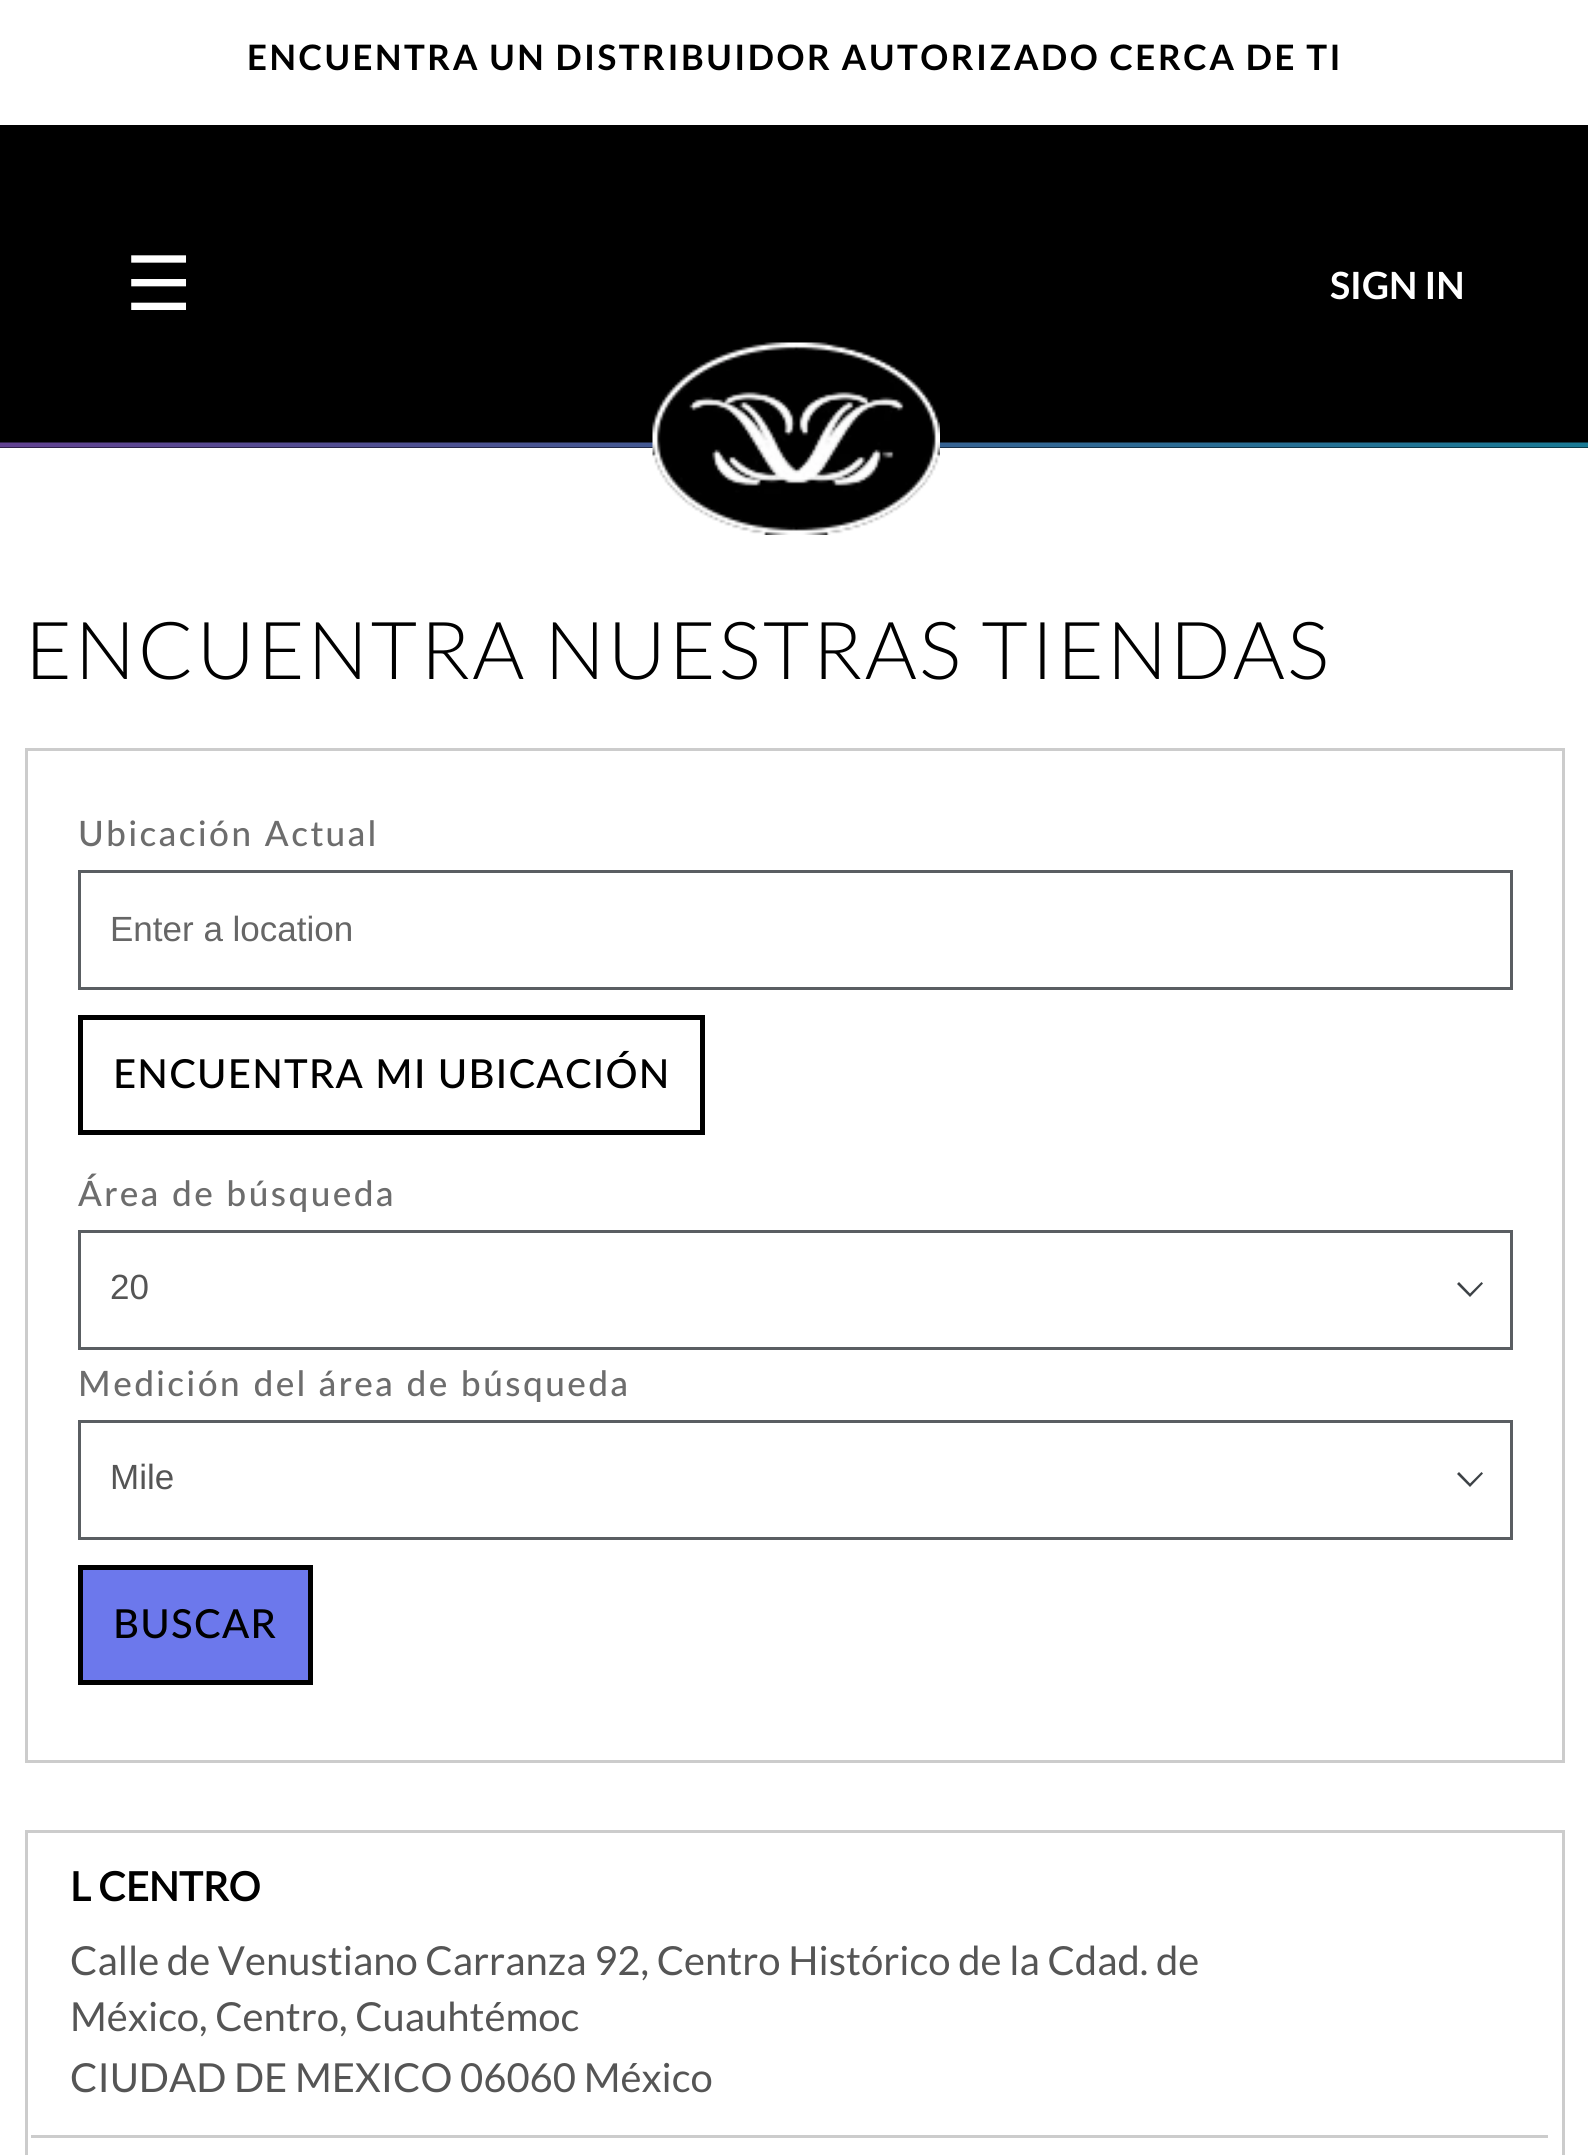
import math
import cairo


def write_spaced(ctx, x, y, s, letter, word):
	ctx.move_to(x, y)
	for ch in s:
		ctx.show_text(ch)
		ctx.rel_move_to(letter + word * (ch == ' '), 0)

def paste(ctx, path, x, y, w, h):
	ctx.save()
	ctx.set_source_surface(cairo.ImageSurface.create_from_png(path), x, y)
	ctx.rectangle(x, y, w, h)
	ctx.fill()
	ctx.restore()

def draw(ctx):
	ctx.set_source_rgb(1, 1, 1)
	ctx.paint()
	ctx.select_font_face('Lato', cairo.FONT_SLANT_NORMAL, cairo.FONT_WEIGHT_BOLD)
	ctx.set_font_size(35)
	ctx.set_source_rgb(0, 0, 0)
	write_spaced(ctx, 247, 70, 'ENCUENTRA UN DISTRIBUIDOR AUTORIZADO CERCA DE TI', 2.5, 0)
	ctx.rectangle(0, 125, 1588, 323)
	ctx.fill()
	paste(ctx, 'media/1.png', 0, 442, 1588, 6)
	ctx.select_font_face('DejaVu Sans')
	ctx.set_font_size(75)
	ctx.set_source_rgb(1, 1, 1)
	ctx.move_to(125, 310)
	ctx.show_text('☰')
	ctx.select_font_face('Lato', cairo.FONT_SLANT_NORMAL, cairo.FONT_WEIGHT_BOLD)
	ctx.set_font_size(37.5)
	ctx.move_to(1330, 299)
	ctx.show_text('SIGN IN')
	paste(ctx, 'media/2.png', 652, 342, 288, 193)
	ctx.select_font_face('Lato Light')
	ctx.set_font_size(80)
	ctx.set_source_rgb(0, 0, 0)
	write_spaced(ctx, 25, 679, 'ENCUENTRA NUESTRAS TIENDAS', 2.5, 0)
	ctx.rectangle(26.5, 749.5, 1537, 1012)
	ctx.set_source_rgb(0.8, 0.8, 0.8)
	ctx.set_line_width(3)
	ctx.stroke()
	ctx.select_font_face('Lato Medium')
	ctx.set_font_size(35)
	ctx.set_source_rgb(0.427, 0.427, 0.427)
	write_spaced(ctx, 78, 846, 'Ubicación Actual', 2.5, 0)
	ctx.rectangle(79.5, 871.5, 1432, 117)
	ctx.set_source_rgb(0.353, 0.369, 0.384)
	ctx.stroke()
	ctx.select_font_face('Liberation Sans')
	ctx.set_source_rgb(0.4, 0.4, 0.4)
	ctx.move_to(110, 941)
	ctx.show_text('Enter a location')
	ctx.rectangle(80.5, 1017.5, 622, 115)
	ctx.set_source_rgb(0, 0, 0)
	ctx.set_line_width(5)
	ctx.stroke()
	ctx.select_font_face('Lato Medium')
	ctx.set_font_size(40)
	write_spaced(ctx, 113, 1088, 'ENCUENTRA MI UBICACIÓN', 1.25, 0)
	ctx.set_font_size(35)
	ctx.set_source_rgb(0.427, 0.427, 0.427)
	write_spaced(ctx, 78, 1206, 'Área de búsqueda', 2.5, 0)
	ctx.set_source_rgb(0.239, 0.259, 0.275)
	ctx.new_path()
	ctx.move_to(1470, 1297)
	ctx.line_to(1457, 1284)
	ctx.line_to(1459, 1282)
	ctx.line_to(1470, 1293.5)
	ctx.line_to(1481.5, 1282)
	ctx.line_to(1483, 1283.5)
	ctx.close_path()
	ctx.fill()
	ctx.rectangle(79.5, 1231.5, 1432, 117)
	ctx.set_source_rgb(0.353, 0.369, 0.384)
	ctx.set_line_width(3)
	ctx.stroke()
	ctx.select_font_face('Liberation Sans')
	ctx.set_source_rgb(0.333, 0.333, 0.333)
	ctx.move_to(110, 1299)
	ctx.show_text('20')
	ctx.select_font_face('Lato Medium')
	ctx.set_source_rgb(0.427, 0.427, 0.427)
	write_spaced(ctx, 78, 1396, 'Medición del área de búsqueda', 2.5, 0)
	ctx.set_source_rgb(0.239, 0.259, 0.275)
	ctx.new_path()
	ctx.move_to(1470, 1487)
	ctx.line_to(1457, 1474)
	ctx.line_to(1459, 1472)
	ctx.line_to(1470, 1483.5)
	ctx.line_to(1481.5, 1472)
	ctx.line_to(1483, 1473.5)
	ctx.close_path()
	ctx.fill()
	ctx.rectangle(79.5, 1421.5, 1432, 117)
	ctx.set_source_rgb(0.353, 0.369, 0.384)
	ctx.stroke()
	ctx.select_font_face('Liberation Sans')
	ctx.set_source_rgb(0.333, 0.333, 0.333)
	ctx.move_to(110, 1489)
	ctx.show_text('Mile')
	ctx.set_source_rgb(0.424, 0.471, 0.922)
	ctx.rectangle(80.5, 1567.5, 230, 115)
	ctx.fill_preserve()
	ctx.set_source_rgb(0, 0, 0)
	ctx.set_line_width(5)
	ctx.stroke()
	ctx.select_font_face('Lato Medium')
	ctx.set_font_size(40)
	write_spaced(ctx, 113, 1638, 'BUSCAR', 1.25, 0)
	ctx.rectangle(26.5, 1831.5, 1537, 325)
	ctx.set_source_rgb(0.8, 0.8, 0.8)
	ctx.set_line_width(3)
	ctx.stroke()
	ctx.rectangle(28, 2135, 1520, 3)
	ctx.fill()
	ctx.set_source_rgb(1, 1, 1)
	ctx.rectangle(28, 2135, 3, 3)
	ctx.fill()
	ctx.select_font_face('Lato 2', cairo.FONT_SLANT_NORMAL, cairo.FONT_WEIGHT_BOLD)
	ctx.set_source_rgb(0, 0, 0)
	ctx.move_to(70, 1901)
	ctx.show_text('L CENTRO')
	ctx.select_font_face('Lato')
	ctx.set_source_rgb(0.333, 0.333, 0.333)
	for x, y, s in [
		(70, 1975, 'Calle de Venustiano Carranza 92, Centro Histórico de la Cdad. de'),
		(70, 2031, 'México, Centro, Cuauhtémoc'),
		(70, 2092, 'CIUDAD DE MEXICO 06060 México'),
	]:
		ctx.move_to(x, y)
		ctx.show_text(s)


surface = cairo.ImageSurface(cairo.FORMAT_RGB24, 1588, 2155)
ctx = cairo.Context(surface)
options = cairo.FontOptions()
options.set_hint_metrics(cairo.HINT_METRICS_OFF)
options.set_hint_style(cairo.HINT_STYLE_NONE)
ctx.set_font_options(options)
ctx.set_miter_limit(4)
draw(ctx)
surface.write_to_png('image.png')
